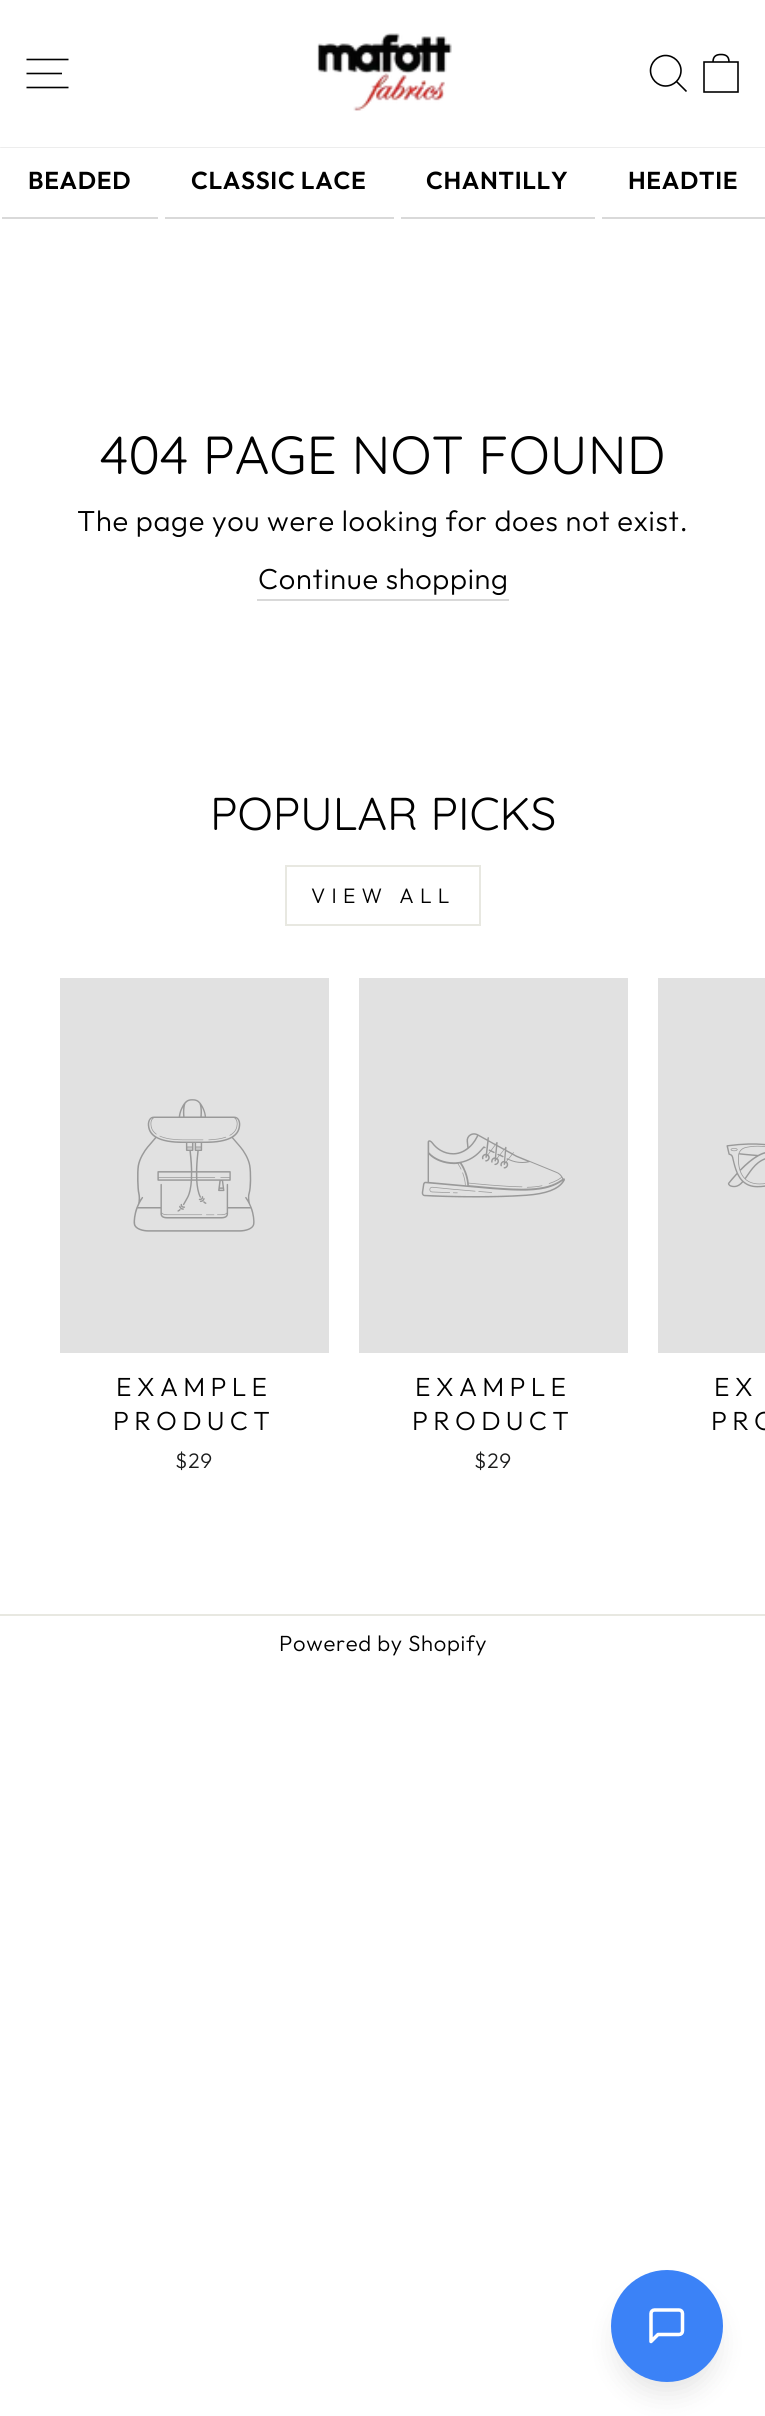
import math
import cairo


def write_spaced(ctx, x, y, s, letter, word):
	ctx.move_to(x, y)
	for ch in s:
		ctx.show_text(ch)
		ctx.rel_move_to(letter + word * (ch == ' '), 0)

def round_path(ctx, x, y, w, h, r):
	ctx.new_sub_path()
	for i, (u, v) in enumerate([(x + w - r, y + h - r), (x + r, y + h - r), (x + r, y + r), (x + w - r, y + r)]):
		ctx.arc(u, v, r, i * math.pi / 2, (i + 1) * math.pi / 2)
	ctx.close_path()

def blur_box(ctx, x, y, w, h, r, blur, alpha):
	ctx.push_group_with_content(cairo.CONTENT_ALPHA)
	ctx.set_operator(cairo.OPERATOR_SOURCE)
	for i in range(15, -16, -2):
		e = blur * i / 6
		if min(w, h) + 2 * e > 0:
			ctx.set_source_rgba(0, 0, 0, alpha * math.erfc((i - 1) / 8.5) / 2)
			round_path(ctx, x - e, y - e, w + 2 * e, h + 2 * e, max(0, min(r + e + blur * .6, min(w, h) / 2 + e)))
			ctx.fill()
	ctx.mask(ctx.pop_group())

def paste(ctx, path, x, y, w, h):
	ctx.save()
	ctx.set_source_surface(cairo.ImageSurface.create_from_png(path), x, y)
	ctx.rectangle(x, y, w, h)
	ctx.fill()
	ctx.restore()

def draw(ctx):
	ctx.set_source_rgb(1, 1, 1)
	ctx.paint()
	ctx.save()
	ctx.rectangle(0, 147, 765, 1)
	ctx.clip()
	ctx.set_source_rgb(0, 0, 0)
	blur_box(ctx, 0, 0, 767, 147, 0, 1, 0.2)
	ctx.restore()
	ctx.new_path()
	ctx.move_to(26.5, 59.5)
	ctx.line_to(68.5, 59.5)
	ctx.move_to(26.5, 73.5)
	ctx.line_to(62, 73.5)
	ctx.move_to(26.5, 87.5)
	ctx.line_to(68.5, 87.5)
	ctx.set_source_rgb(0, 0, 0)
	ctx.set_line_width(1.6)
	ctx.stroke()
	paste(ctx, 'media/1.png', 317, 33, 135, 78)
	ctx.new_path()
	ctx.move_to(681, 70.5)
	ctx.curve_to(681, 79, 674, 86, 665.5, 86)
	ctx.curve_to(657.5, 86, 650.5, 79, 650.5, 70.5)
	ctx.curve_to(650.5, 62.5, 657.5, 55.5, 665.5, 55.5)
	ctx.curve_to(674, 55.5, 681, 62.5, 681, 70.5)
	ctx.close_path()
	ctx.move_to(686.5, 91.5)
	ctx.line_to(676.5, 81.5)
	ctx.stroke()
	ctx.new_path()
	ctx.move_to(704, 62)
	ctx.line_to(738, 62)
	ctx.line_to(738, 92)
	ctx.line_to(704, 92)
	ctx.close_path()
	ctx.move_to(713, 62)
	ctx.curve_to(713, 56, 716.5, 54.5, 721, 54.5)
	ctx.curve_to(725.5, 54.5, 729, 56, 729, 62)
	ctx.stroke()
	ctx.set_source_rgb(0.851, 0.851, 0.851)
	ctx.rectangle(2, 217, 156, 2)
	ctx.fill()
	ctx.select_font_face('Outfit SemiBold')
	ctx.set_font_size(24.5)
	ctx.set_source_rgb(0, 0, 0)
	write_spaced(ctx, 28, 189, 'BEADED', 0.7, 0)
	ctx.set_source_rgb(0.851, 0.851, 0.851)
	ctx.rectangle(165, 217, 229, 2)
	ctx.fill()
	ctx.set_source_rgb(0, 0, 0)
	write_spaced(ctx, 191, 189, 'CLASSIC LACE', 0.7, 0)
	ctx.set_source_rgb(0.851, 0.851, 0.851)
	ctx.rectangle(401, 217, 194, 2)
	ctx.fill()
	ctx.set_source_rgb(0, 0, 0)
	write_spaced(ctx, 426, 189, 'CHANTILLY', 0.7, 0)
	ctx.set_source_rgb(0.851, 0.851, 0.851)
	ctx.rectangle(602, 217, 163, 2)
	ctx.fill()
	ctx.set_source_rgb(0, 0, 0)
	write_spaced(ctx, 628, 189, 'HEADTIE', 0.7, 0)
	ctx.select_font_face('Quicksand')
	ctx.set_font_size(53.5)
	ctx.move_to(100, 474)
	ctx.show_text('404 PAGE NOT FOUND')
	ctx.select_font_face('Outfit Light')
	ctx.set_font_size(29)
	write_spaced(ctx, 77, 531, 'The page you were looking for does not exist.', 0.7, 0)
	ctx.set_source_rgb(0.851, 0.851, 0.851)
	ctx.rectangle(257, 599, 252, 2)
	ctx.fill()
	ctx.set_source_rgb(0, 0, 0)
	write_spaced(ctx, 258, 589, 'Continue shopping', 0.7, 0)
	ctx.select_font_face('Quicksand')
	ctx.set_font_size(46)
	ctx.move_to(210, 830)
	ctx.show_text('POPULAR PICKS')
	ctx.rectangle(286, 866, 194, 59)
	ctx.set_source_rgb(0.91, 0.91, 0.882)
	ctx.set_line_width(2)
	ctx.stroke()
	ctx.select_font_face('Outfit Light')
	ctx.set_font_size(21)
	ctx.set_source_rgb(0, 0, 0)
	write_spaced(ctx, 311, 903, 'VIEW ALL', 6.25, 0)
	ctx.set_source_rgb(0.882, 0.882, 0.882)
	ctx.rectangle(60, 978, 269, 375)
	ctx.fill()
	paste(ctx, 'media/2.png', 133, 1099, 122, 133)
	ctx.set_font_size(26.25)
	ctx.set_source_rgb(0, 0, 0)
	write_spaced(ctx, 116, 1396, 'EXAMPLE', 5.25, 0)
	write_spaced(ctx, 113, 1430, 'PRODUCT', 5.25, 0)
	ctx.set_font_size(21)
	ctx.set_source_rgb(0.11, 0.114, 0.114)
	write_spaced(ctx, 175, 1468, '$29', 0.7, 0)
	ctx.set_source_rgb(0.882, 0.882, 0.882)
	ctx.rectangle(359, 978, 269, 375)
	ctx.fill()
	paste(ctx, 'media/3.png', 421, 1133, 144, 65)
	ctx.set_font_size(26.25)
	ctx.set_source_rgb(0, 0, 0)
	write_spaced(ctx, 415, 1396, 'EXAMPLE', 5.25, 0)
	write_spaced(ctx, 412, 1430, 'PRODUCT', 5.25, 0)
	ctx.set_font_size(21)
	ctx.set_source_rgb(0.11, 0.114, 0.114)
	write_spaced(ctx, 474, 1468, '$29', 0.7, 0)
	ctx.set_source_rgb(0.882, 0.882, 0.882)
	ctx.rectangle(658, 978, 107, 375)
	ctx.fill()
	paste(ctx, 'media/4.png', 726, 1143, 39, 45)
	ctx.set_font_size(26.25)
	ctx.set_source_rgb(0, 0, 0)
	write_spaced(ctx, 714, 1396, 'EX', 5.25, 0)
	write_spaced(ctx, 711, 1430, 'PRO', 5.25, 0)
	ctx.set_source_rgb(0.91, 0.91, 0.882)
	ctx.rectangle(0, 1614, 765, 2)
	ctx.fill()
	ctx.set_font_size(22)
	ctx.set_source_rgb(0, 0, 0)
	write_spaced(ctx, 279, 1651, 'Powered by Shopify', 0.7, 0)
	ctx.set_source_rgb(0, 0, 0)
	blur_box(ctx, 616, 2293, 102, 101, 50.5, 13, 0.1)
	ctx.set_source_rgb(0.231, 0.51, 0.965)
	ctx.arc(667, 2326, 56, 0, 2 * math.pi)
	ctx.fill()
	ctx.new_path()
	ctx.move_to(682.5, 2331)
	ctx.curve_to(682.5, 2333, 681, 2334.5, 679, 2334.5)
	ctx.line_to(658, 2334.5)
	ctx.line_to(651, 2341.5)
	ctx.line_to(651, 2313.5)
	ctx.curve_to(651, 2311.5, 652.5, 2310, 654.5, 2310)
	ctx.line_to(679, 2310)
	ctx.curve_to(681, 2310, 682.5, 2311.5, 682.5, 2313.5)
	ctx.close_path()
	ctx.set_source_rgb(1, 1, 1)
	ctx.set_line_width(3.5)
	ctx.set_line_cap(cairo.LINE_CAP_ROUND)
	ctx.set_line_join(cairo.LINE_JOIN_ROUND)
	ctx.stroke()


surface = cairo.ImageSurface(cairo.FORMAT_RGB24, 765, 2416)
ctx = cairo.Context(surface)
options = cairo.FontOptions()
options.set_hint_metrics(cairo.HINT_METRICS_OFF)
options.set_hint_style(cairo.HINT_STYLE_NONE)
ctx.set_font_options(options)
ctx.set_miter_limit(4)
draw(ctx)
surface.write_to_png('image.png')
